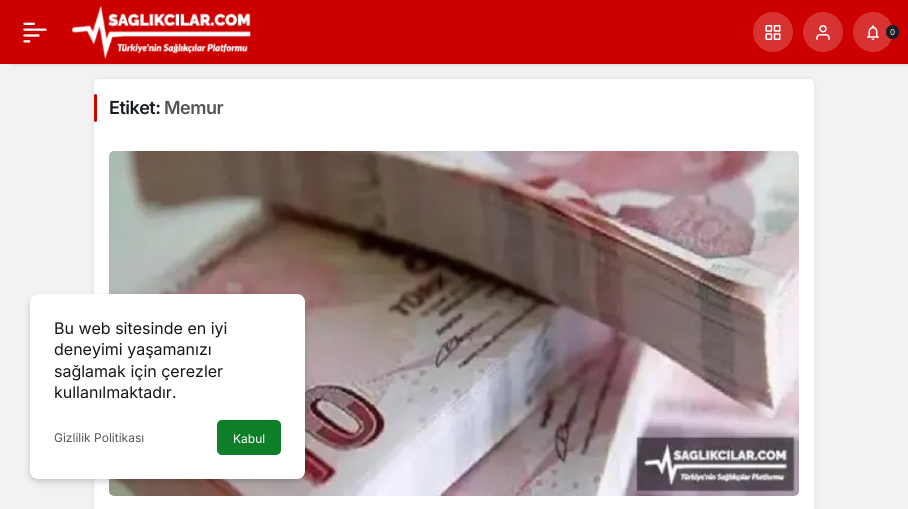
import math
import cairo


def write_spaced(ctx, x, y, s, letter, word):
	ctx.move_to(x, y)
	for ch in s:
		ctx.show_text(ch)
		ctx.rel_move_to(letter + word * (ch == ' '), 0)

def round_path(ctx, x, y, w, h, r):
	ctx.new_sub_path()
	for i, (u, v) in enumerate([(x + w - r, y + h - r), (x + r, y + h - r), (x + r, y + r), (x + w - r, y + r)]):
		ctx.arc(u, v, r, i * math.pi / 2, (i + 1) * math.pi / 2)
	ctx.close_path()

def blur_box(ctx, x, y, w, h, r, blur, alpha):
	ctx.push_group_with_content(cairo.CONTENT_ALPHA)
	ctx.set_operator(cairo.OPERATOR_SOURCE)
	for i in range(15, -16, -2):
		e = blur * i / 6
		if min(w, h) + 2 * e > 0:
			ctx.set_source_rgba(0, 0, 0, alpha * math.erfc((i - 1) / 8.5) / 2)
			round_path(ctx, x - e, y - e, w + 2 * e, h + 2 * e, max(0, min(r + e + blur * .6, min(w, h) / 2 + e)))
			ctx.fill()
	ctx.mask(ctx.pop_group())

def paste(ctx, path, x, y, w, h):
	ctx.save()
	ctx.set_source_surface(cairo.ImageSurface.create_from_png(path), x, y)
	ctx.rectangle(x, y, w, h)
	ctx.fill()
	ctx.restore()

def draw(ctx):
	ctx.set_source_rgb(0.949, 0.949, 0.953)
	ctx.paint()
	ctx.set_source_rgb(0, 0, 0)
	blur_box(ctx, 10, 1, 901, 64, 0, 1, 0.1)
	ctx.set_source_rgb(0.804, 0, 0)
	ctx.rectangle(0, 0, 908, 64)
	ctx.fill()
	paste(ctx, 'media/1.png', 23, 22, 24, 21)
	paste(ctx, 'media/2.png', 71, 5, 180, 54)
	ctx.set_source_rgb(0.843, 0.2, 0.2)
	ctx.arc(773, 32, 20, 0, 2 * math.pi)
	ctx.fill()
	paste(ctx, 'media/3.png', 765, 25, 16, 15)
	ctx.arc(823, 32, 20, 0, 2 * math.pi)
	ctx.fill()
	paste(ctx, 'media/4.png', 816, 25, 14, 15)
	ctx.arc(873, 32, 20, 0, 2 * math.pi)
	ctx.fill()
	paste(ctx, 'media/5.png', 867, 25, 12, 15)
	ctx.set_source_rgb(0.098, 0.11, 0.125)
	round_path(ctx, 886, 25, 13, 14, 6.5)
	ctx.fill()
	ctx.select_font_face('Inter')
	ctx.set_font_size(8)
	ctx.set_source_rgb(1, 1, 1)
	ctx.move_to(890, 35)
	ctx.show_text('0')
	ctx.set_source_rgb(0.196, 0.208, 0.239)
	blur_box(ctx, 94, 79, 720, 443, 5, 2.5, 0.1)
	ctx.set_source_rgb(1, 1, 1)
	round_path(ctx, 94, 79, 720, 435, 5)
	ctx.fill()
	ctx.set_source_rgb(0.804, 0, 0)
	round_path(ctx, 94, 94, 3, 28, 1.5)
	ctx.fill()
	ctx.select_font_face('Inter SemiBold')
	ctx.set_font_size(18)
	ctx.set_source_rgb(0.098, 0.11, 0.125)
	write_spaced(ctx, 109, 114, 'Etiket:', -0.5, 0)
	ctx.set_source_rgb(0.325, 0.333, 0.345)
	write_spaced(ctx, 164, 114, 'Memur', -0.5, 0)
	paste(ctx, 'media/6.png', 109, 151, 690, 345)
	ctx.set_source_rgb(0, 0, 0)
	blur_box(ctx, 30, 296, 275, 185, 8, 2, 0.08)
	blur_box(ctx, 30, 298, 275, 185, 8, 4, 0.12)
	ctx.set_source_rgb(1, 1, 1)
	round_path(ctx, 30, 294, 275, 185, 8)
	ctx.fill()
	ctx.select_font_face('Inter')
	ctx.set_font_size(16)
	ctx.set_source_rgb(0.086, 0.086, 0.086)
	for x, y, s in [
		(54, 334, 'Bu web sitesinde en iyi'),
		(54, 355, 'deneyimi yaşamanızı'),
		(54, 377, 'sağlamak için çerezler'),
		(54, 398, 'kullanılmaktadır.'),
	]:
		ctx.move_to(x, y)
		ctx.show_text(s)
	ctx.set_font_size(12)
	ctx.set_source_rgb(0.325, 0.333, 0.345)
	ctx.move_to(54, 442)
	ctx.show_text('Gizlilik Politikası')
	ctx.set_source_rgb(0.059, 0.494, 0.161)
	round_path(ctx, 217, 420, 64, 35, 5)
	ctx.fill()
	ctx.set_source_rgb(1, 1, 1)
	ctx.move_to(233, 443)
	ctx.show_text('Kabul')


surface = cairo.ImageSurface(cairo.FORMAT_RGB24, 908, 509)
ctx = cairo.Context(surface)
options = cairo.FontOptions()
options.set_hint_metrics(cairo.HINT_METRICS_OFF)
options.set_hint_style(cairo.HINT_STYLE_NONE)
ctx.set_font_options(options)
ctx.set_miter_limit(4)
draw(ctx)
surface.write_to_png('image.png')
